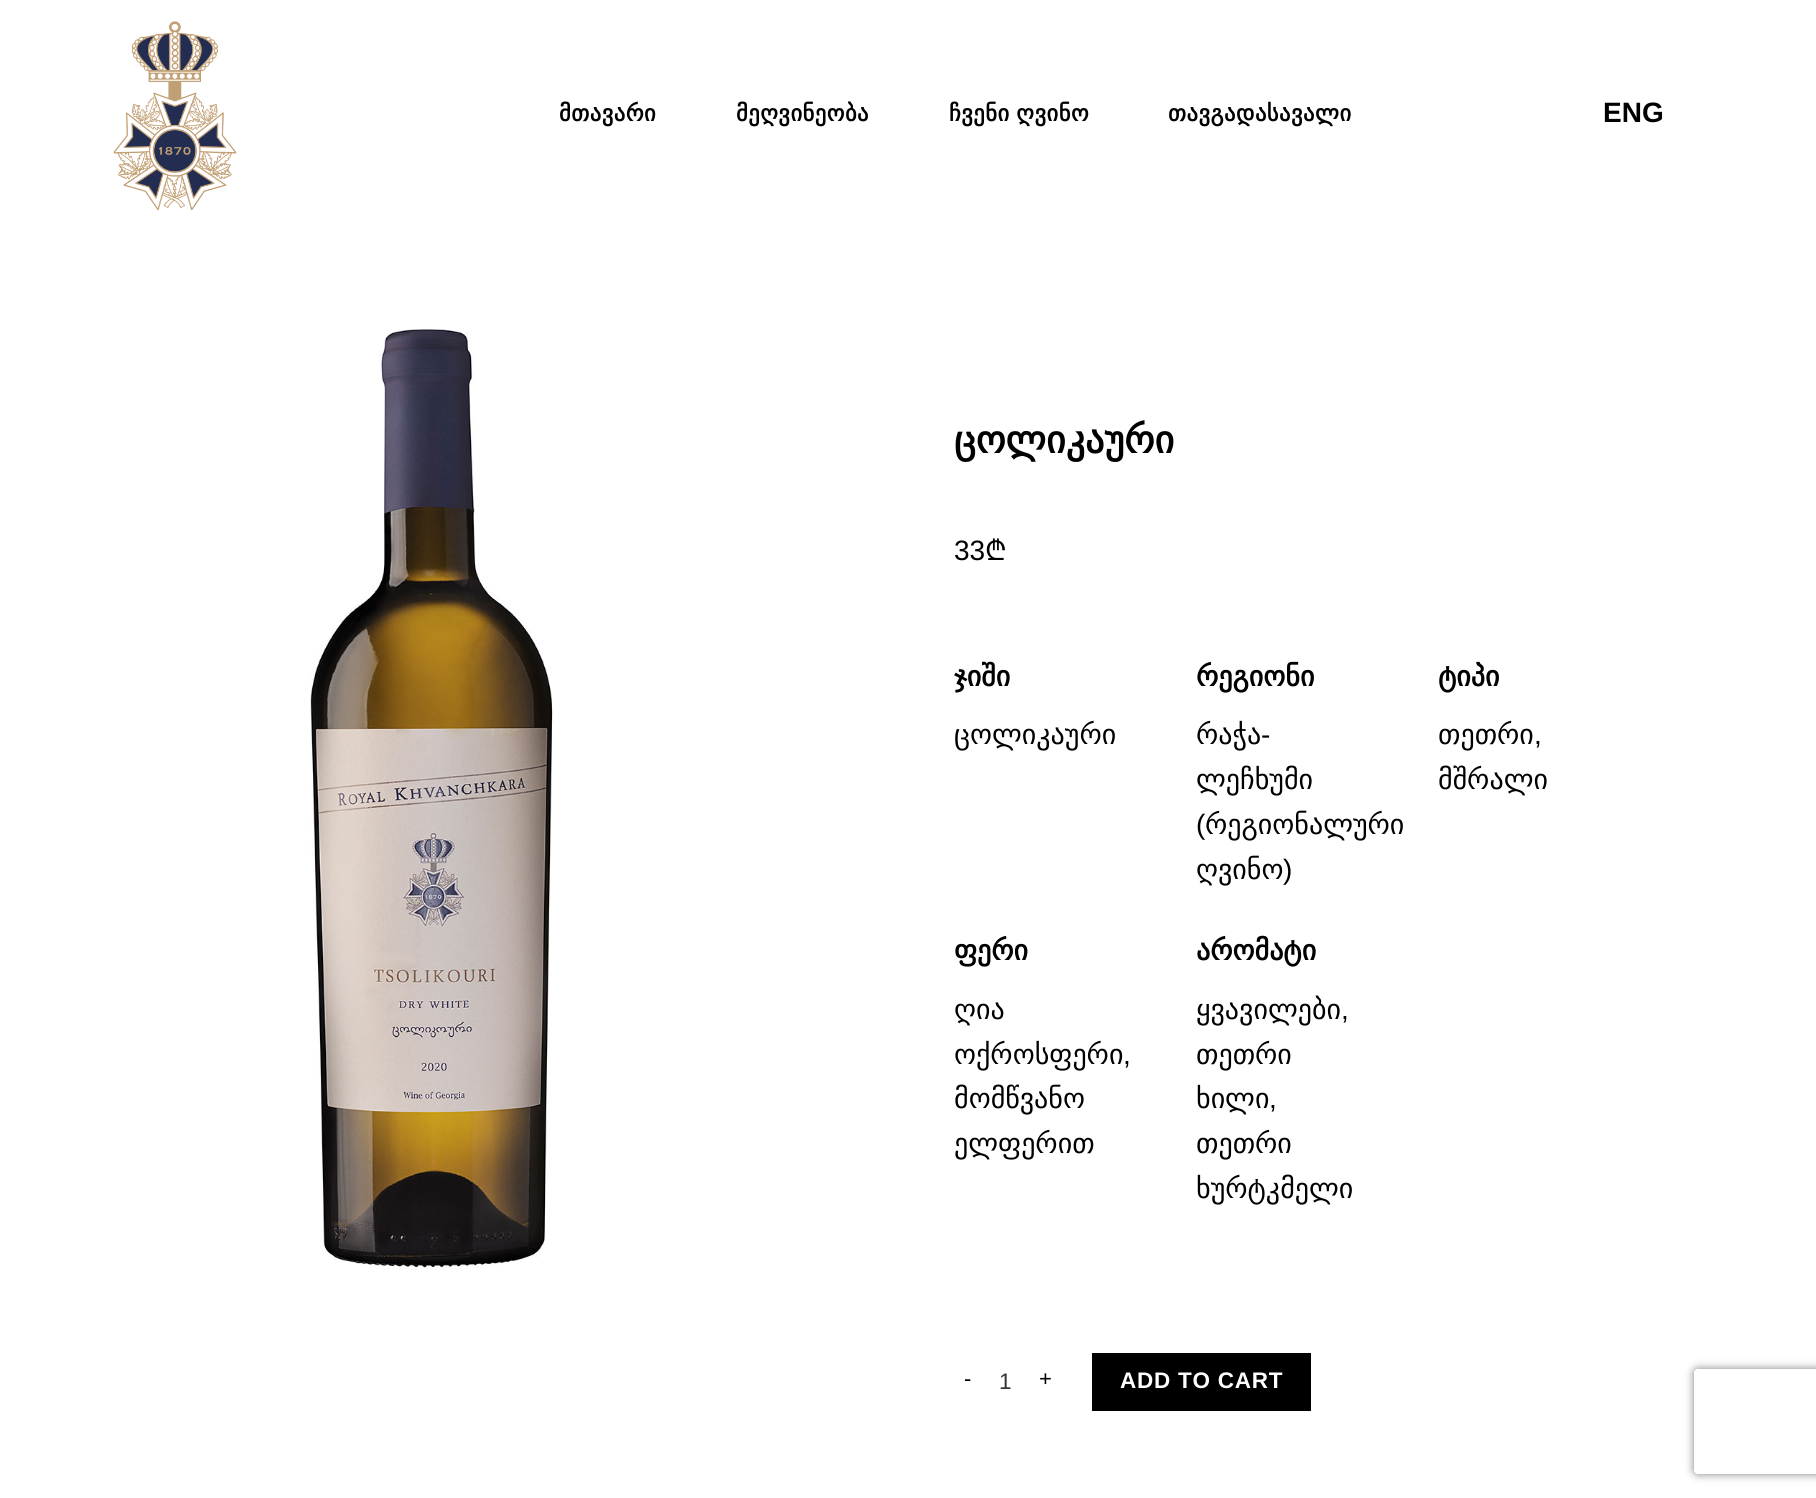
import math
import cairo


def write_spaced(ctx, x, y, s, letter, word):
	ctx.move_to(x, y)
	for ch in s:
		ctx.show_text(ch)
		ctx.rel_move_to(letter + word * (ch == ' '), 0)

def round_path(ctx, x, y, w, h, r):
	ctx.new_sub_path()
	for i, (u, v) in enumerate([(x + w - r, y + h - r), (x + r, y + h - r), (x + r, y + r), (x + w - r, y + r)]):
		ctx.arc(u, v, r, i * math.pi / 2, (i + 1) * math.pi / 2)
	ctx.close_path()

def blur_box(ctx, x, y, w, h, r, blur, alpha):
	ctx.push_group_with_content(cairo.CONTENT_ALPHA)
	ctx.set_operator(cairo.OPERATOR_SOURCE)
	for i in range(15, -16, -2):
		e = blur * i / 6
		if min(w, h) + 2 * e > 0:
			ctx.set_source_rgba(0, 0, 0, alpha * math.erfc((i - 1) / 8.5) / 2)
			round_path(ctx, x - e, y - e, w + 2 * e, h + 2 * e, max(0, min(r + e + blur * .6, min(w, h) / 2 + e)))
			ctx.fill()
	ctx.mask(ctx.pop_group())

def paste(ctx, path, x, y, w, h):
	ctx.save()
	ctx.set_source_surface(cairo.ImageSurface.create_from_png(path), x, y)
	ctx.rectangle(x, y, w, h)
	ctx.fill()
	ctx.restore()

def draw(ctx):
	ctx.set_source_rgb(1, 1, 1)
	ctx.paint()
	paste(ctx, 'media/1.png', 113, 21, 124, 189)
	ctx.select_font_face('DejaVu Sans', cairo.FONT_SLANT_NORMAL, cairo.FONT_WEIGHT_BOLD)
	ctx.set_font_size(22.5)
	ctx.set_source_rgb(0, 0, 0)
	write_spaced(ctx, 559, 121, 'მთავარი', 0.5, 0)
	write_spaced(ctx, 736, 121, 'მეღვინეობა', 0.5, 0)
	write_spaced(ctx, 949, 121, 'ჩვენი ღვინო', 0.5, -1)
	write_spaced(ctx, 1168, 121, 'თავგადასავალი', 0.5, 0)
	ctx.select_font_face('Liberation Sans', cairo.FONT_SLANT_NORMAL, cairo.FONT_WEIGHT_BOLD)
	ctx.set_font_size(28)
	ctx.move_to(1603, 122)
	ctx.show_text('ENG')
	paste(ctx, 'media/2.png', 310, 329, 243, 940)
	ctx.select_font_face('DejaVu Sans', cairo.FONT_SLANT_NORMAL, cairo.FONT_WEIGHT_BOLD)
	ctx.set_font_size(38)
	ctx.move_to(954, 453)
	ctx.show_text('ცოლიკაური')
	ctx.select_font_face('Liberation Sans')
	ctx.set_font_size(28)
	ctx.move_to(954, 560)
	ctx.show_text('33')
	ctx.select_font_face('Noto Sans')
	ctx.move_to(985, 560)
	ctx.show_text('₾')
	ctx.select_font_face('DejaVu Sans', cairo.FONT_SLANT_NORMAL, cairo.FONT_WEIGHT_BOLD)
	ctx.move_to(954, 686)
	ctx.show_text('ჯიში')
	ctx.select_font_face('DejaVu Sans')
	ctx.move_to(954, 744)
	ctx.show_text('ცოლიკაური')
	ctx.select_font_face('DejaVu Sans', cairo.FONT_SLANT_NORMAL, cairo.FONT_WEIGHT_BOLD)
	ctx.move_to(1196, 686)
	ctx.show_text('რეგიონი')
	ctx.select_font_face('DejaVu Sans')
	ctx.move_to(1196, 744)
	ctx.show_text('რაჭა')
	ctx.select_font_face('Liberation Sans')
	ctx.move_to(1261, 744)
	ctx.show_text('-')
	ctx.select_font_face('DejaVu Sans')
	ctx.move_to(1196, 789)
	ctx.show_text('ლეჩხუმი')
	ctx.select_font_face('Liberation Sans')
	ctx.move_to(1196, 834)
	ctx.show_text('(')
	ctx.select_font_face('DejaVu Sans')
	ctx.move_to(1205, 834)
	ctx.show_text('რეგიონალური')
	ctx.move_to(1196, 879)
	ctx.show_text('ღვინო')
	ctx.select_font_face('Liberation Sans')
	ctx.move_to(1283, 879)
	ctx.show_text(')')
	ctx.select_font_face('DejaVu Sans', cairo.FONT_SLANT_NORMAL, cairo.FONT_WEIGHT_BOLD)
	ctx.move_to(1438, 686)
	ctx.show_text('ტიპი')
	ctx.select_font_face('DejaVu Sans')
	ctx.move_to(1438, 744)
	ctx.show_text('თეთრი')
	ctx.select_font_face('Liberation Sans')
	ctx.move_to(1534, 744)
	ctx.show_text(',')
	ctx.select_font_face('DejaVu Sans')
	ctx.move_to(1438, 789)
	ctx.show_text('მშრალი')
	ctx.select_font_face('DejaVu Sans', cairo.FONT_SLANT_NORMAL, cairo.FONT_WEIGHT_BOLD)
	ctx.move_to(954, 960)
	ctx.show_text('ფერი')
	ctx.select_font_face('DejaVu Sans')
	ctx.move_to(954, 1019)
	ctx.show_text('ღია')
	ctx.move_to(954, 1064)
	ctx.show_text('ოქროსფერი')
	ctx.select_font_face('Liberation Sans')
	ctx.move_to(1123, 1064)
	ctx.show_text(',')
	ctx.select_font_face('DejaVu Sans')
	ctx.move_to(954, 1108)
	ctx.show_text('მომწვანო')
	ctx.move_to(954, 1153)
	ctx.show_text('ელფერით')
	ctx.select_font_face('DejaVu Sans', cairo.FONT_SLANT_NORMAL, cairo.FONT_WEIGHT_BOLD)
	ctx.move_to(1196, 960)
	ctx.show_text('არომატი')
	ctx.select_font_face('DejaVu Sans')
	ctx.move_to(1196, 1019)
	ctx.show_text('ყვავილები')
	ctx.select_font_face('Liberation Sans')
	ctx.move_to(1341, 1019)
	ctx.show_text(',')
	ctx.select_font_face('DejaVu Sans')
	ctx.move_to(1196, 1064)
	ctx.show_text('თეთრი')
	ctx.move_to(1196, 1108)
	ctx.show_text('ხილი')
	ctx.select_font_face('Liberation Sans')
	ctx.move_to(1269, 1108)
	ctx.show_text(',')
	ctx.select_font_face('DejaVu Sans')
	ctx.move_to(1196, 1153)
	ctx.show_text('თეთრი')
	ctx.move_to(1196, 1198)
	ctx.show_text('ხურტკმელი')
	ctx.select_font_face('Liberation Sans')
	ctx.set_font_size(22)
	write_spaced(ctx, 964, 1386, '-', 1, 0)
	ctx.set_font_size(22.5)
	ctx.set_source_rgb(0.2, 0.2, 0.2)
	ctx.move_to(999, 1389)
	ctx.show_text('1')
	ctx.set_font_size(22)
	ctx.set_source_rgb(0, 0, 0)
	write_spaced(ctx, 1039, 1386, '+', 1, 0)
	ctx.rectangle(1092, 1353, 219, 58)
	ctx.fill()
	ctx.select_font_face('Liberation Sans', cairo.FONT_SLANT_NORMAL, cairo.FONT_WEIGHT_BOLD)
	ctx.set_font_size(22.5)
	ctx.set_source_rgb(1, 1, 1)
	write_spaced(ctx, 1120, 1388, 'ADD TO CART', 0.75, 0)
	ctx.save()
	ctx.set_fill_rule(cairo.FILL_RULE_EVEN_ODD)
	ctx.new_path()
	ctx.move_to(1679, 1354)
	ctx.line_to(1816, 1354)
	ctx.line_to(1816, 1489)
	ctx.line_to(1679, 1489)
	ctx.close_path()
	ctx.move_to(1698, 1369)
	ctx.line_to(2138, 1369)
	ctx.curve_to(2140, 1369, 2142, 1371, 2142, 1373)
	ctx.line_to(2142, 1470)
	ctx.curve_to(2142, 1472, 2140, 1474, 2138, 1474)
	ctx.line_to(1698, 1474)
	ctx.curve_to(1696, 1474, 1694, 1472, 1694, 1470)
	ctx.line_to(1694, 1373)
	ctx.curve_to(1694, 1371, 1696, 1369, 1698, 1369)
	ctx.close_path()
	ctx.clip()
	ctx.set_source_rgb(0.502, 0.502, 0.502)
	blur_box(ctx, 1694, 1369, 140, 105, 4, 4.5, 1)
	ctx.restore()


surface = cairo.ImageSurface(cairo.FORMAT_RGB24, 1816, 1498)
ctx = cairo.Context(surface)
options = cairo.FontOptions()
options.set_hint_metrics(cairo.HINT_METRICS_OFF)
options.set_hint_style(cairo.HINT_STYLE_NONE)
ctx.set_font_options(options)
ctx.set_miter_limit(4)
draw(ctx)
surface.write_to_png('image.png')
